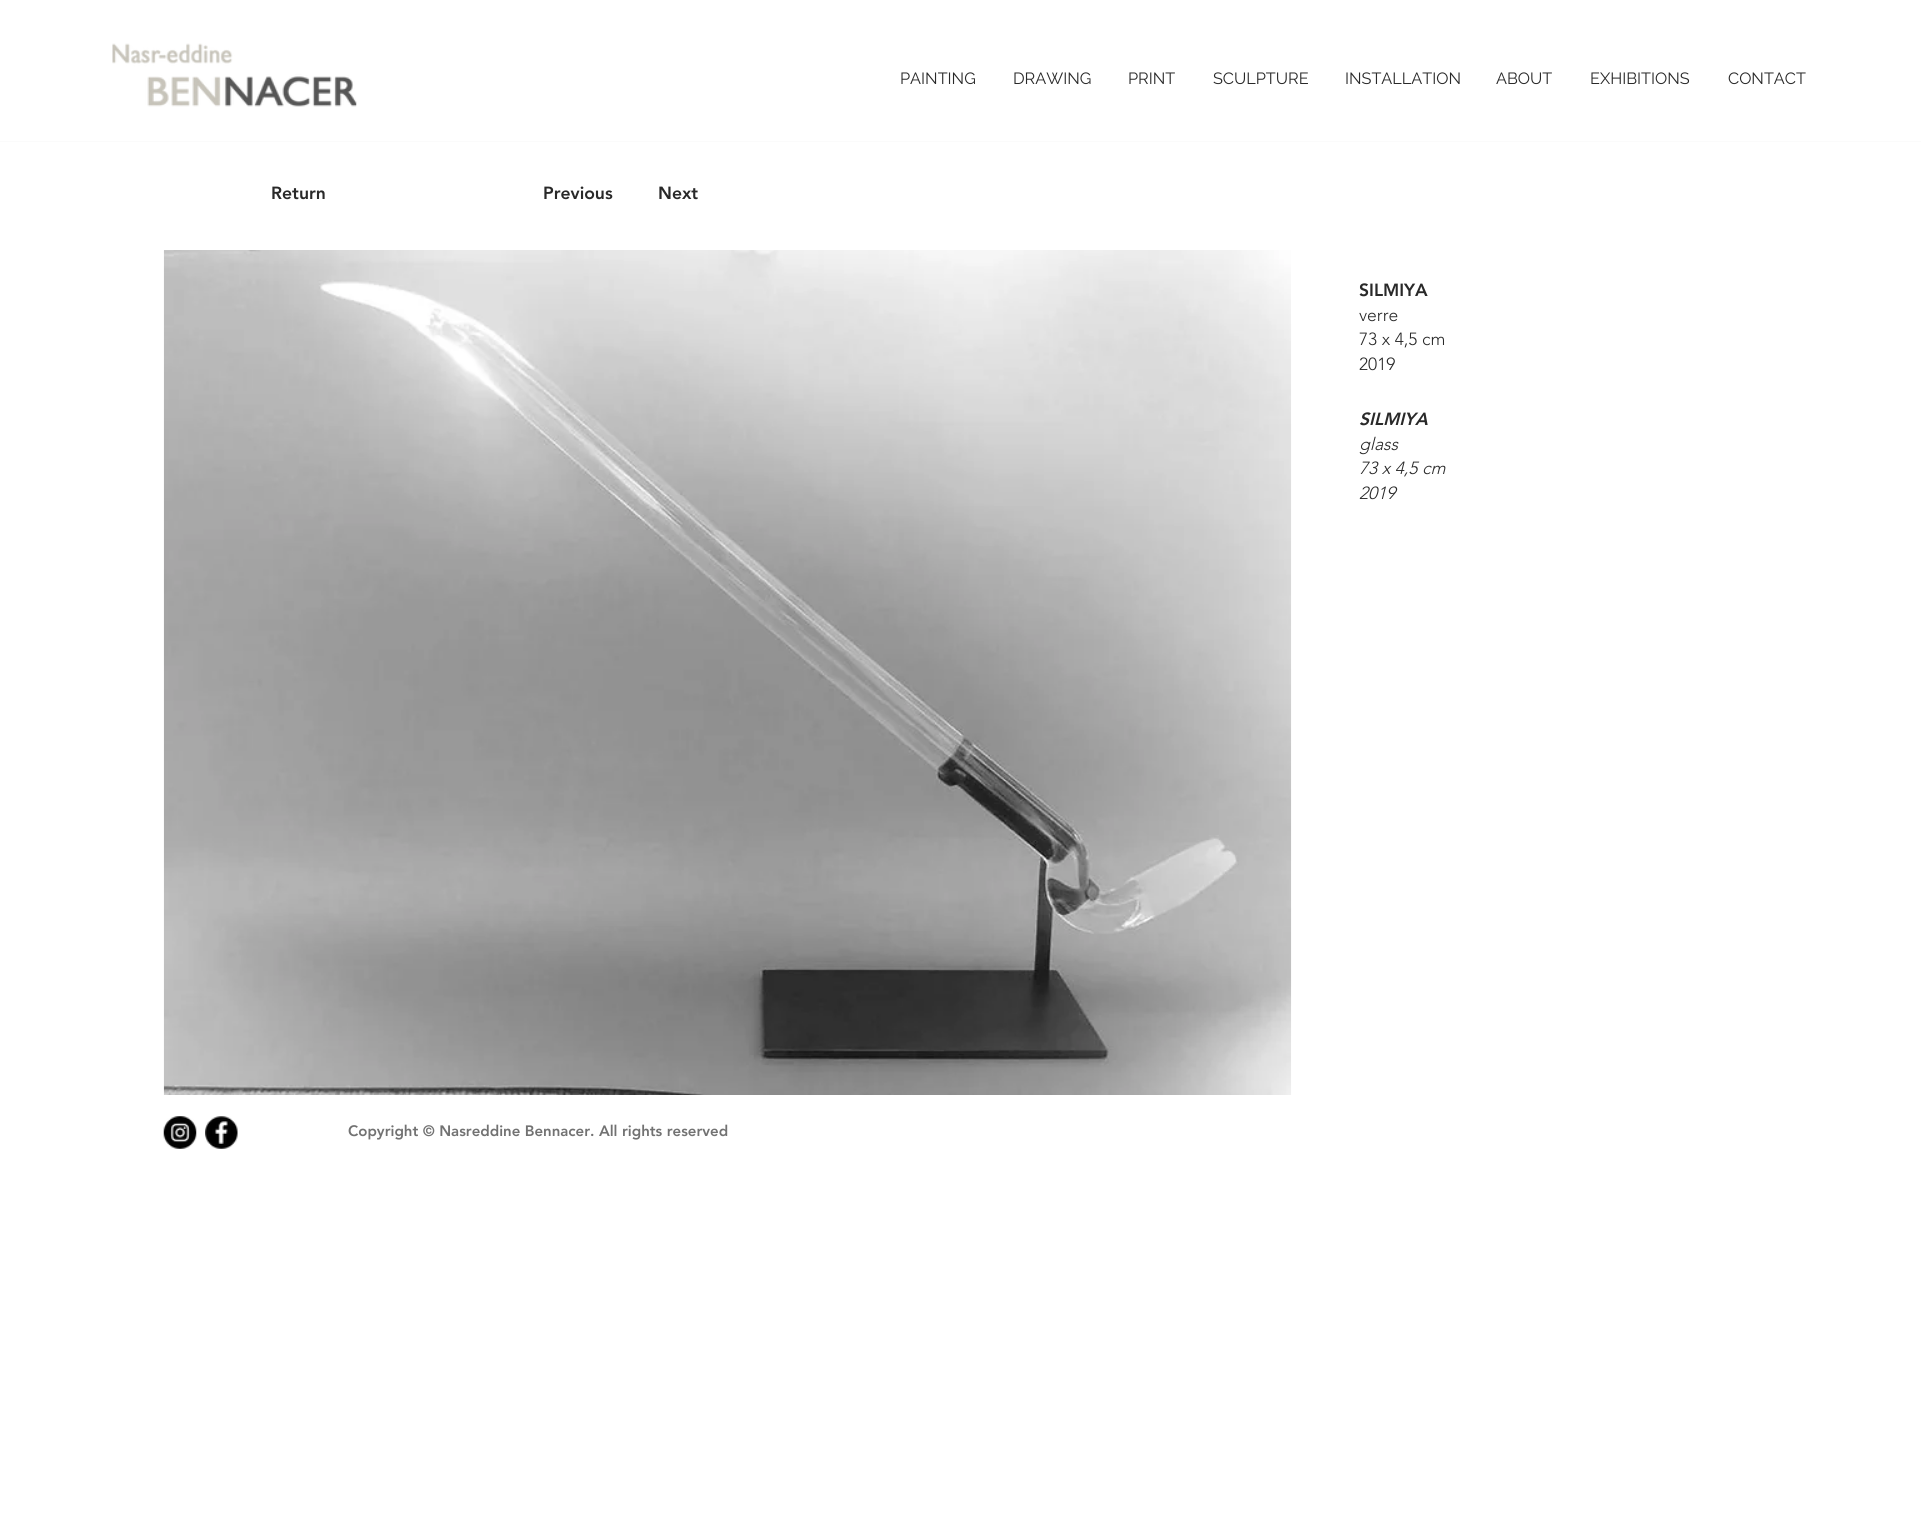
import math
import cairo


def paste(ctx, path, x, y, w, h):
	ctx.save()
	ctx.set_source_surface(cairo.ImageSurface.create_from_png(path), x, y)
	ctx.rectangle(x, y, w, h)
	ctx.fill()
	ctx.restore()

def draw(ctx):
	ctx.set_source_rgb(1, 1, 1)
	ctx.paint()
	paste(ctx, 'media/1.png', 112, 43, 245, 64)
	ctx.select_font_face('Raleway')
	ctx.set_font_size(16.25)
	ctx.set_source_rgb(0.161, 0.161, 0.161)
	for x, y, s in [
		(900, 84, 'PAINTING'),
		(1013, 84, 'DRAWING'),
		(1128, 84, 'PRINT'),
		(1213, 84, 'SCULPTURE'),
		(1345, 84, 'INSTALLATION'),
		(1496, 84, 'ABOUT'),
		(1590, 84, 'EXHIBITIONS'),
		(1728, 84, 'CONTACT'),
	]:
		ctx.move_to(x, y)
		ctx.show_text(s)
	ctx.set_source_rgb(0.984, 0.984, 0.984)
	ctx.rectangle(0, 141, 1921, 1)
	ctx.fill()
	ctx.select_font_face('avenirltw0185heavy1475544 Black')
	ctx.set_font_size(17.5)
	ctx.set_source_rgb(0.161, 0.161, 0.161)
	for x, y, s in [
		(271, 199, 'Return'),
		(543, 199, 'Previous'),
		(658, 199, 'Next'),
	]:
		ctx.move_to(x, y)
		ctx.show_text(s)
	paste(ctx, 'media/2.png', 163, 250, 1129, 845)
	ctx.move_to(1359, 296)
	ctx.show_text('SILMIYA')
	ctx.select_font_face('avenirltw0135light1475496 Light')
	for x, y, s in [
		(1359, 321, 'verre'),
		(1359, 345, '73 x 4,5 cm'),
		(1359, 370, '2019'),
	]:
		ctx.move_to(x, y)
		ctx.show_text(s)
	ctx.select_font_face('avenirltw0185heavy1475544 Black', cairo.FONT_SLANT_ITALIC)
	ctx.move_to(1359, 425)
	ctx.show_text('SILMIYA')
	ctx.select_font_face('avenirltw0135light1475496 Light', cairo.FONT_SLANT_ITALIC)
	for x, y, s in [
		(1359, 450, 'glass'),
		(1359, 474, '73 x 4,5 cm'),
		(1359, 499, '2019'),
	]:
		ctx.move_to(x, y)
		ctx.show_text(s)
	paste(ctx, 'media/3.png', 163, 1116, 34, 33)
	paste(ctx, 'media/4.png', 205, 1116, 33, 33)
	ctx.select_font_face('avenirltw0185heavy1475544 Black')
	ctx.set_font_size(15)
	ctx.set_source_rgb(0.447, 0.447, 0.447)
	ctx.move_to(348, 1136)
	ctx.show_text('Copyright © Nasreddine Bennacer. All rights reserved')


surface = cairo.ImageSurface(cairo.FORMAT_RGB24, 1921, 1513)
ctx = cairo.Context(surface)
options = cairo.FontOptions()
options.set_hint_metrics(cairo.HINT_METRICS_OFF)
options.set_hint_style(cairo.HINT_STYLE_NONE)
ctx.set_font_options(options)
ctx.set_miter_limit(4)
draw(ctx)
surface.write_to_png('image.png')
